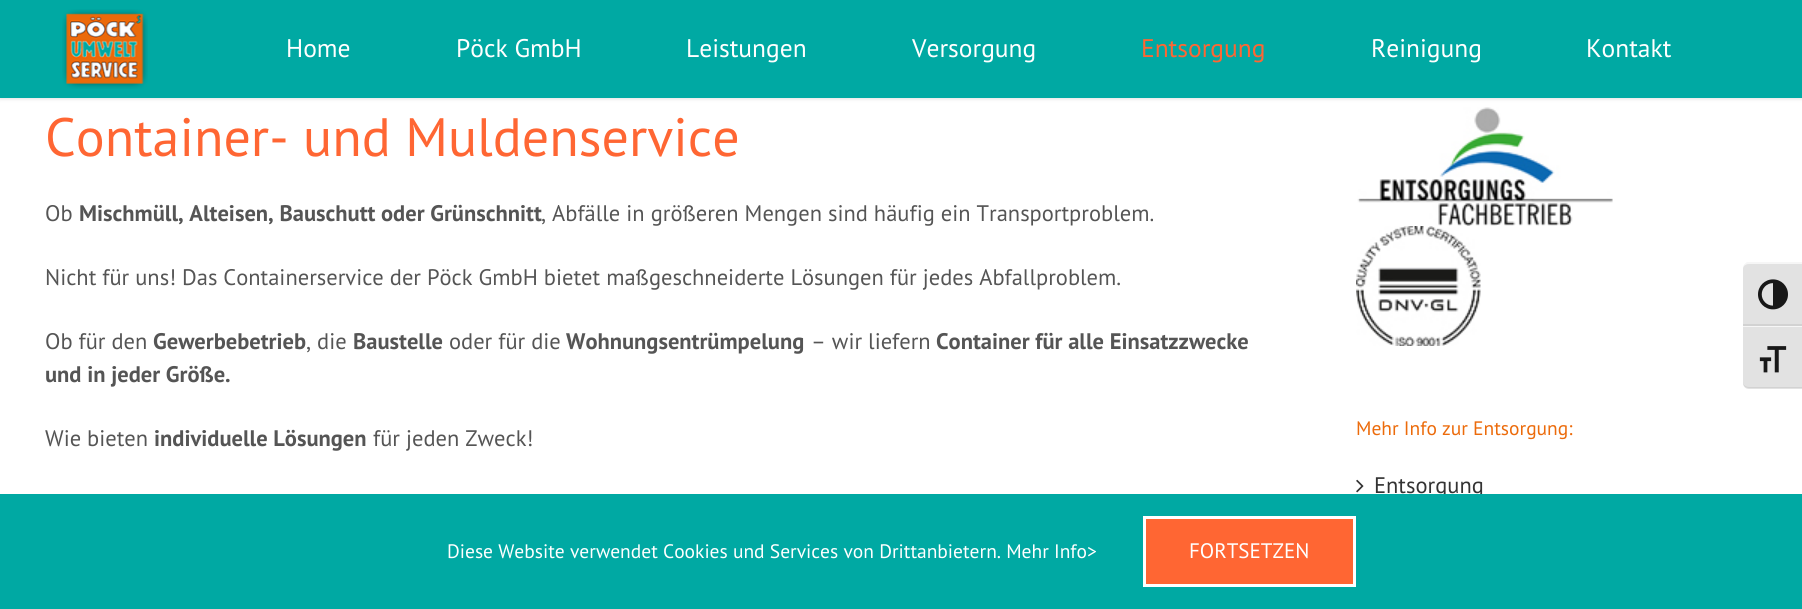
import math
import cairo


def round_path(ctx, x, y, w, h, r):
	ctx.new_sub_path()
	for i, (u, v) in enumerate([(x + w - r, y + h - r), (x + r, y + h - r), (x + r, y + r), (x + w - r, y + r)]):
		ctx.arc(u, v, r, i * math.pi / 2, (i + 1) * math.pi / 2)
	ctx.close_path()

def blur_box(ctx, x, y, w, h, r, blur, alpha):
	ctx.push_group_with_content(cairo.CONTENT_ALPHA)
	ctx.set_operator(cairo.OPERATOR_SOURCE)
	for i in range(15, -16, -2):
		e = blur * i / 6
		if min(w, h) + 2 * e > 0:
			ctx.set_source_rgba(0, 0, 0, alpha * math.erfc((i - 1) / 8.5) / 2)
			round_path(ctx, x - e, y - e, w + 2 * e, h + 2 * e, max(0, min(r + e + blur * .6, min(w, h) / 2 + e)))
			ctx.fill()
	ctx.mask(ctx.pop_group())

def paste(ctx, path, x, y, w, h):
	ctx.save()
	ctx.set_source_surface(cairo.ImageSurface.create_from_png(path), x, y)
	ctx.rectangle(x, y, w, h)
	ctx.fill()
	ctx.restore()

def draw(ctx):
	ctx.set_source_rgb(1, 1, 1)
	ctx.paint()
	ctx.set_source_rgb(0, 0, 0)
	blur_box(ctx, 0, 2, 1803, 97, 0, 2, 0.12)
	ctx.set_source_rgb(0, 0.663, 0.639)
	ctx.rectangle(0, 0, 1802, 98)
	ctx.fill()
	paste(ctx, 'media/1.png', 62, 9, 86, 80)
	ctx.select_font_face('PT Sans')
	ctx.set_font_size(25.5)
	ctx.set_source_rgb(1, 1, 1)
	for x, y, s in [
		(286, 57, 'Home'),
		(456, 57, 'Pöck GmbH'),
		(686, 57, 'Leistungen'),
		(912, 57, 'Versorgung'),
	]:
		ctx.move_to(x, y)
		ctx.show_text(s)
	ctx.set_source_rgb(1, 0.4, 0.2)
	ctx.move_to(1141, 57)
	ctx.show_text('Entsorgung')
	ctx.set_source_rgb(1, 1, 1)
	ctx.move_to(1371, 57)
	ctx.show_text('Reinigung')
	ctx.move_to(1586, 57)
	ctx.show_text('Kontakt')
	ctx.set_font_size(54)
	ctx.set_source_rgb(1, 0.4, 0.2)
	ctx.move_to(45, 156)
	ctx.show_text('Container- und Muldenservice')
	ctx.set_font_size(22.5)
	ctx.set_source_rgb(0.333, 0.333, 0.333)
	ctx.move_to(45, 221)
	ctx.show_text('Ob')
	ctx.select_font_face('PT Sans', cairo.FONT_SLANT_NORMAL, cairo.FONT_WEIGHT_BOLD)
	ctx.move_to(79, 221)
	ctx.show_text('Mischmüll, Alteisen, Bauschutt oder Grünschnitt')
	ctx.select_font_face('PT Sans')
	for x, y, s in [
		(541, 221, ', Abfälle in größeren Mengen sind häufig ein Transportproblem.'),
		(45, 285, 'Nicht für uns! Das Containerservice der Pöck GmbH bietet maßgeschneiderte Lösungen für jedes Abfallproblem.'),
		(45, 349, 'Ob für den'),
	]:
		ctx.move_to(x, y)
		ctx.show_text(s)
	ctx.select_font_face('PT Sans', cairo.FONT_SLANT_NORMAL, cairo.FONT_WEIGHT_BOLD)
	ctx.move_to(153, 349)
	ctx.show_text('Gewerbebetrieb')
	ctx.select_font_face('PT Sans')
	ctx.move_to(306, 349)
	ctx.show_text(', die')
	ctx.select_font_face('PT Sans', cairo.FONT_SLANT_NORMAL, cairo.FONT_WEIGHT_BOLD)
	ctx.move_to(353, 349)
	ctx.show_text('Baustelle')
	ctx.select_font_face('PT Sans')
	ctx.move_to(449, 349)
	ctx.show_text('oder für die')
	ctx.select_font_face('PT Sans', cairo.FONT_SLANT_NORMAL, cairo.FONT_WEIGHT_BOLD)
	ctx.move_to(566, 349)
	ctx.show_text('Wohnungsentrümpelung')
	ctx.select_font_face('PT Sans')
	ctx.move_to(811, 349)
	ctx.show_text('– wir liefern')
	ctx.select_font_face('PT Sans', cairo.FONT_SLANT_NORMAL, cairo.FONT_WEIGHT_BOLD)
	ctx.move_to(936, 349)
	ctx.show_text('Container für alle Einsatzzwecke')
	ctx.move_to(45, 382)
	ctx.show_text('und in jeder Größe.')
	ctx.select_font_face('PT Sans')
	ctx.move_to(45, 446)
	ctx.show_text('Wie bieten')
	ctx.select_font_face('PT Sans', cairo.FONT_SLANT_NORMAL, cairo.FONT_WEIGHT_BOLD)
	ctx.move_to(154, 446)
	ctx.show_text('individuelle Lösungen')
	ctx.select_font_face('PT Sans')
	ctx.move_to(373, 446)
	ctx.show_text('für jeden Zweck!')
	paste(ctx, 'media/2.png', 1357, 107, 256, 119)
	paste(ctx, 'media/3.png', 1356, 226, 125, 120)
	ctx.set_font_size(19.5)
	ctx.set_source_rgb(0.922, 0.42, 0.043)
	ctx.move_to(1356, 435)
	ctx.show_text('Mehr Info zur Entsorgung:')
	paste(ctx, 'media/4.png', 1356, 479, 8, 14)
	ctx.set_font_size(22.5)
	ctx.set_source_rgb(0.2, 0.2, 0.2)
	ctx.move_to(1374, 493)
	ctx.show_text('Entsorgung')
	ctx.set_source_rgb(0.886, 0.886, 0.886)
	ctx.new_path()
	ctx.move_to(1749, 263)
	ctx.line_to(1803, 263)
	ctx.line_to(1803, 326)
	ctx.line_to(1743, 326)
	ctx.line_to(1743, 269)
	ctx.curve_to(1743, 265.5, 1745.5, 263, 1749, 263)
	ctx.close_path()
	ctx.fill()
	ctx.set_source_rgb(0.961, 0.961, 0.961)
	ctx.new_path()
	ctx.move_to(1749, 264)
	ctx.curve_to(1746, 264, 1743, 266, 1743, 268)
	ctx.curve_to(1743, 266, 1745, 263, 1747, 262)
	ctx.line_to(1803, 262)
	ctx.line_to(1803, 264)
	ctx.close_path()
	ctx.fill()
	ctx.set_source_rgb(0.824, 0.824, 0.824)
	ctx.rectangle(1743, 324, 59, 2)
	ctx.fill()
	paste(ctx, 'media/5.png', 1758, 279, 30, 31)
	ctx.set_source_rgb(0.886, 0.886, 0.886)
	ctx.new_path()
	ctx.move_to(1743, 326)
	ctx.line_to(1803, 326)
	ctx.line_to(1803, 389)
	ctx.line_to(1749, 389)
	ctx.curve_to(1745.5, 389, 1743, 386.5, 1743, 383)
	ctx.close_path()
	ctx.fill()
	ctx.set_source_rgb(0.961, 0.961, 0.961)
	ctx.rectangle(1743, 326, 59, 1)
	ctx.fill()
	ctx.set_source_rgb(0.824, 0.824, 0.824)
	ctx.new_path()
	ctx.move_to(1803, 388)
	ctx.line_to(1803, 387)
	ctx.line_to(1749, 387)
	ctx.curve_to(1746, 387, 1743, 385, 1743, 382)
	ctx.curve_to(1743, 386, 1746, 388, 1749, 388)
	ctx.close_path()
	ctx.fill()
	paste(ctx, 'media/6.png', 1759, 346, 28, 27)
	ctx.set_source_rgb(0, 0.663, 0.639)
	ctx.rectangle(0, 494, 1802, 115)
	ctx.fill()
	ctx.set_font_size(19.5)
	ctx.set_source_rgb(1, 1, 1)
	ctx.move_to(447, 558)
	ctx.show_text('Diese Website verwendet Cookies und Services von Drittanbietern. Mehr Info>')
	ctx.set_source_rgb(1, 0.4, 0.2)
	ctx.rectangle(1144.5, 517.5, 210, 68)
	ctx.fill_preserve()
	ctx.set_source_rgb(1, 1, 1)
	ctx.set_line_width(3)
	ctx.stroke()
	ctx.set_font_size(21)
	ctx.move_to(1189, 558)
	ctx.show_text('FORTSETZEN')


surface = cairo.ImageSurface(cairo.FORMAT_RGB24, 1802, 609)
ctx = cairo.Context(surface)
options = cairo.FontOptions()
options.set_hint_metrics(cairo.HINT_METRICS_OFF)
options.set_hint_style(cairo.HINT_STYLE_NONE)
ctx.set_font_options(options)
ctx.set_miter_limit(4)
draw(ctx)
surface.write_to_png('image.png')
